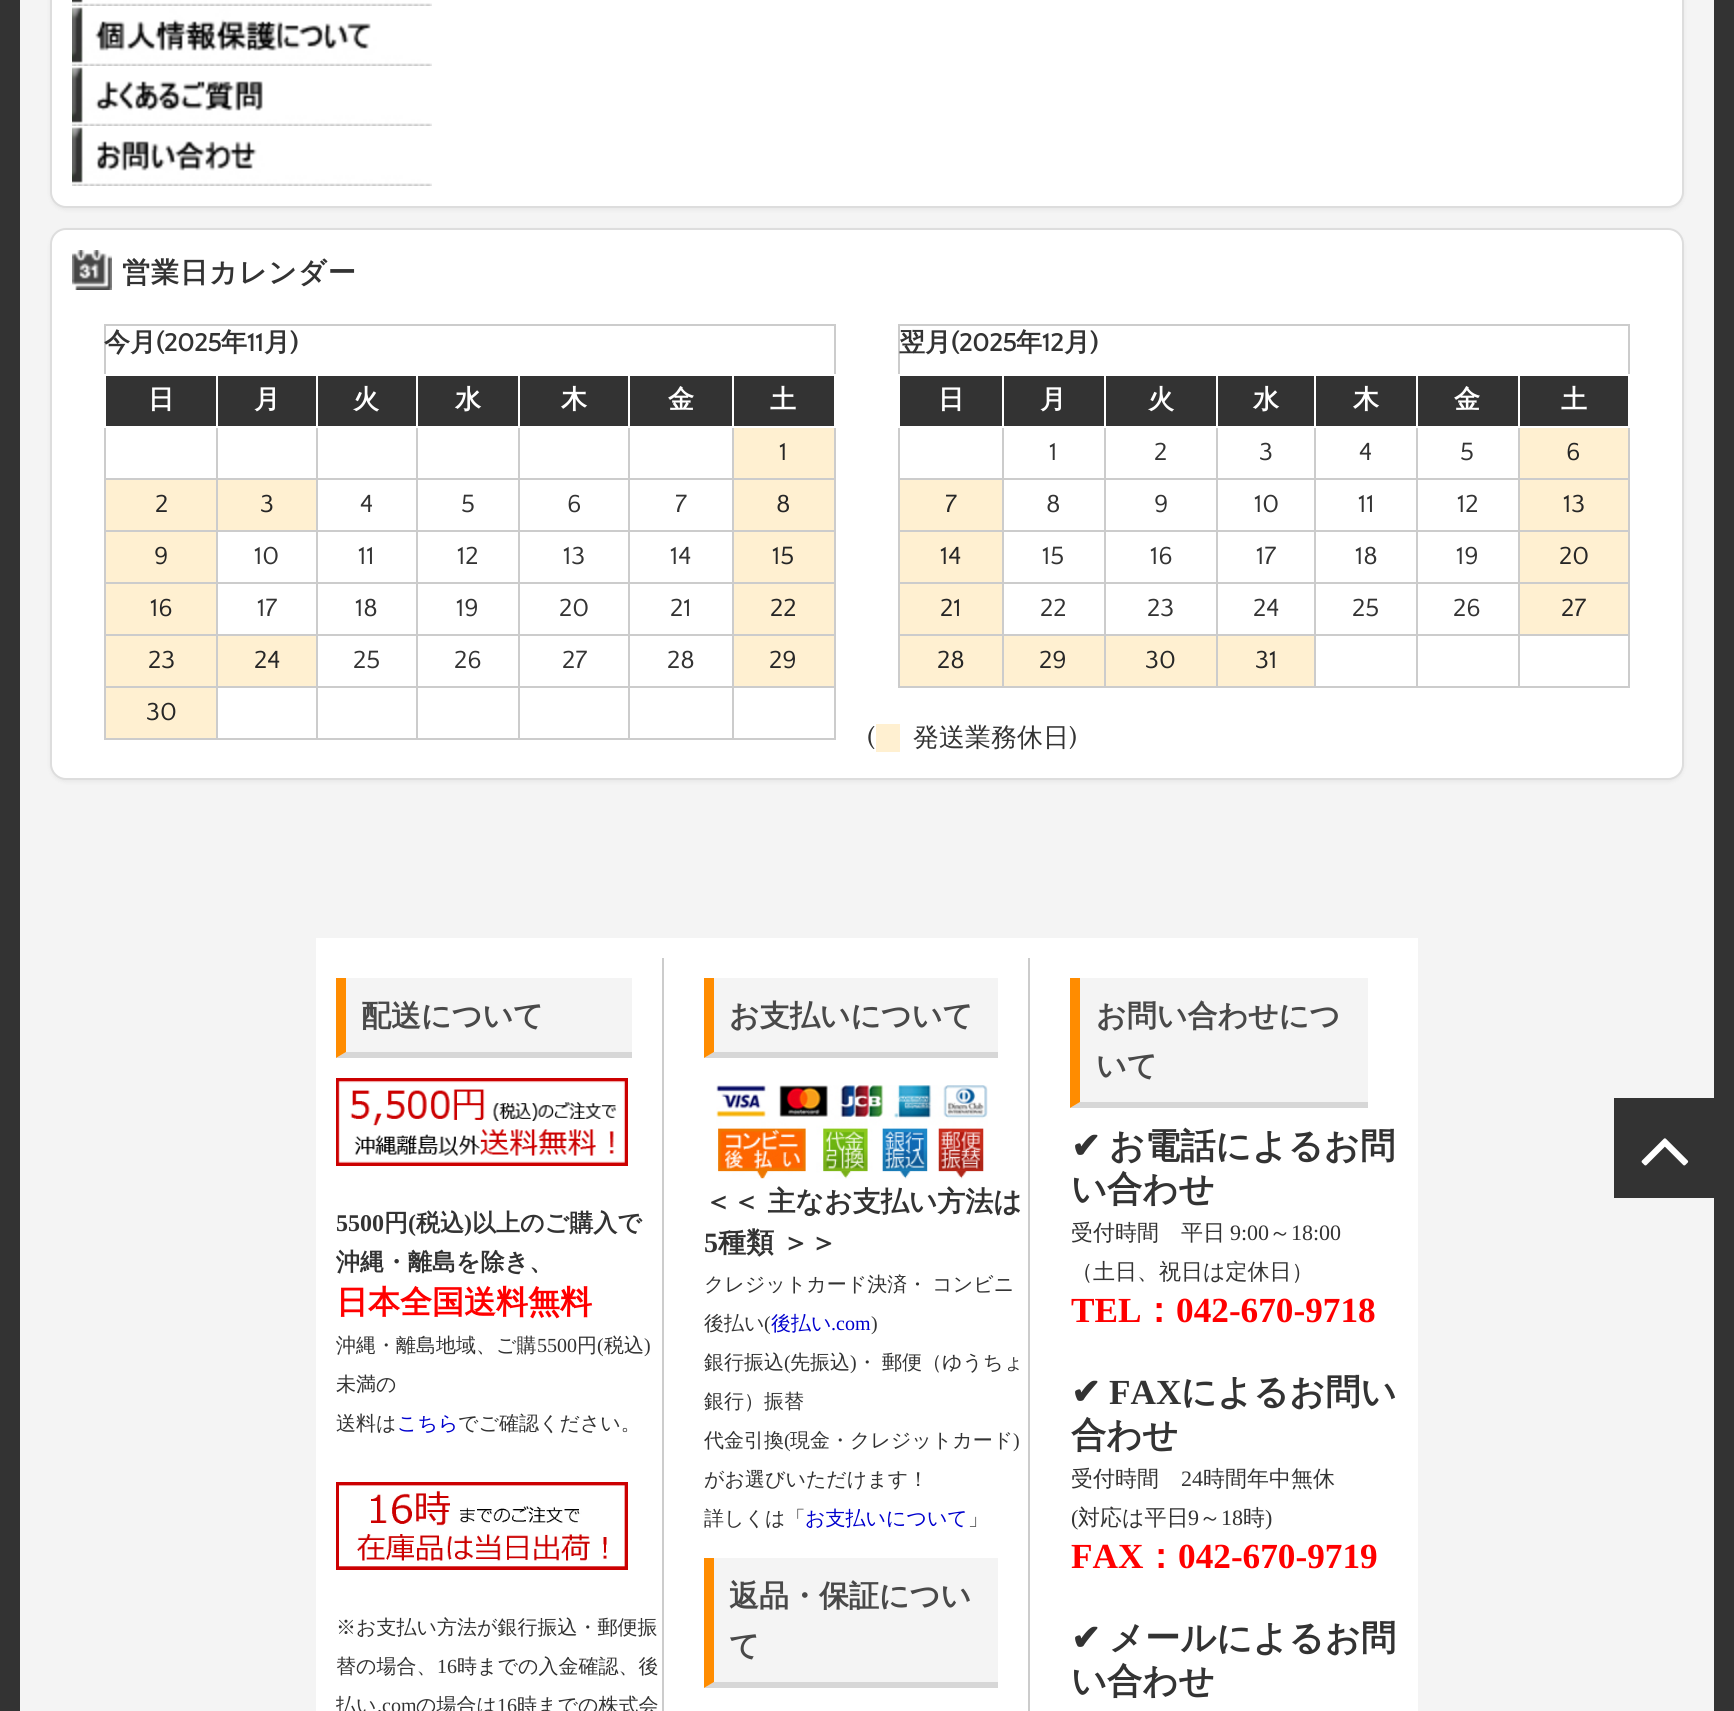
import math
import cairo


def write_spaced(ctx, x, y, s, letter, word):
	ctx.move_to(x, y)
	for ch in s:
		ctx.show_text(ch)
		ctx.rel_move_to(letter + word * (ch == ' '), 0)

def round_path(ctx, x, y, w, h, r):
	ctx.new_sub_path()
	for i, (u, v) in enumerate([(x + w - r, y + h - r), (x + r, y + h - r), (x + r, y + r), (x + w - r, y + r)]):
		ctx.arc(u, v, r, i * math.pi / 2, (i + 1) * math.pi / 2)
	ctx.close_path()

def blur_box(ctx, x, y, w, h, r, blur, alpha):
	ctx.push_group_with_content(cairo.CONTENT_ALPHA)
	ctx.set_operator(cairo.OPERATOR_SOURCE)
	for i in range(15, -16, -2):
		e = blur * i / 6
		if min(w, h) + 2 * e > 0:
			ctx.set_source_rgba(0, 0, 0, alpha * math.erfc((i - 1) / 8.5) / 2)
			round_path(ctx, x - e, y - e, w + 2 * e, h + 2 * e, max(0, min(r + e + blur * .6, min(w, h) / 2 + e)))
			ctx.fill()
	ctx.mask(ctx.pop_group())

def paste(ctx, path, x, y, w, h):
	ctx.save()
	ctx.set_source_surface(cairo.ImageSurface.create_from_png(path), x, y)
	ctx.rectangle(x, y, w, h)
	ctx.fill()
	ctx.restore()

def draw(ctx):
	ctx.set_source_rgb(0.957, 0.957, 0.957)
	ctx.paint()
	ctx.rectangle(10, -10, 1714, 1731)
	ctx.set_source_rgb(0.2, 0.2, 0.2)
	ctx.set_line_width(20)
	ctx.stroke()
	ctx.set_source_rgb(0, 0, 0)
	blur_box(ctx, 50, -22, 1634, 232, 16, 2, 0.05)
	ctx.set_source_rgb(1, 1, 1)
	round_path(ctx, 51, -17, 1632, 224, 15)
	ctx.fill_preserve()
	ctx.set_source_rgb(0.867, 0.867, 0.867)
	ctx.set_line_width(2)
	ctx.stroke()
	paste(ctx, 'media/1.png', 72, 0, 360, 6)
	paste(ctx, 'media/2.png', 72, 7, 360, 59)
	paste(ctx, 'media/3.png', 72, 67, 360, 59)
	paste(ctx, 'media/4.png', 72, 127, 360, 59)
	ctx.set_source_rgb(0, 0, 0)
	blur_box(ctx, 50, 230, 1634, 552, 16, 2, 0.05)
	ctx.set_source_rgb(1, 1, 1)
	round_path(ctx, 51, 229, 1632, 550, 15)
	ctx.fill_preserve()
	ctx.set_source_rgb(0.867, 0.867, 0.867)
	ctx.stroke()
	paste(ctx, 'media/5.png', 72, 250, 40, 40)
	ctx.select_font_face('WenQuanYi Zen Hei', cairo.FONT_SLANT_NORMAL, cairo.FONT_WEIGHT_BOLD)
	ctx.set_font_size(28)
	ctx.set_source_rgb(0.2, 0.2, 0.2)
	write_spaced(ctx, 122, 282, '営業日カレンダー', 1, 0)
	ctx.set_source_rgb(0.8, 0.8, 0.8)
	ctx.rectangle(104, 324, 732, 2)
	ctx.rectangle(834, 324, 2, 416)
	ctx.rectangle(104, 738, 732, 2)
	ctx.rectangle(104, 324, 2, 416)
	ctx.fill()
	ctx.set_font_size(26)
	ctx.set_source_rgb(0.2, 0.2, 0.2)
	ctx.move_to(104, 351)
	ctx.show_text('今月')
	ctx.select_font_face('Quattrocento Sans', cairo.FONT_SLANT_NORMAL, cairo.FONT_WEIGHT_BOLD)
	ctx.move_to(156, 351)
	ctx.show_text('(2025')
	ctx.select_font_face('WenQuanYi Zen Hei', cairo.FONT_SLANT_NORMAL, cairo.FONT_WEIGHT_BOLD)
	ctx.move_to(221, 351)
	ctx.show_text('年')
	ctx.select_font_face('Quattrocento Sans', cairo.FONT_SLANT_NORMAL, cairo.FONT_WEIGHT_BOLD)
	ctx.move_to(247, 351)
	ctx.show_text('11')
	ctx.select_font_face('WenQuanYi Zen Hei', cairo.FONT_SLANT_NORMAL, cairo.FONT_WEIGHT_BOLD)
	ctx.move_to(264, 351)
	ctx.show_text('月')
	ctx.select_font_face('Quattrocento Sans', cairo.FONT_SLANT_NORMAL, cairo.FONT_WEIGHT_BOLD)
	ctx.move_to(290, 351)
	ctx.show_text(')')
	ctx.rectangle(106, 376, 110, 50)
	ctx.fill()
	ctx.set_source_rgb(1, 1, 1)
	ctx.rectangle(104, 374, 2, 2)
	ctx.rectangle(104, 374, 2, 54)
	ctx.fill()
	ctx.select_font_face('WenQuanYi Zen Hei', cairo.FONT_SLANT_NORMAL, cairo.FONT_WEIGHT_BOLD)
	ctx.move_to(148, 408)
	ctx.show_text('日')
	ctx.set_source_rgb(0.2, 0.2, 0.2)
	ctx.rectangle(218, 376, 98, 50)
	ctx.fill()
	ctx.set_source_rgb(0.8, 0.8, 0.8)
	ctx.rectangle(732, 478, 104, 2)
	ctx.rectangle(732, 530, 104, 2)
	ctx.rectangle(732, 582, 104, 2)
	ctx.rectangle(732, 634, 104, 2)
	ctx.rectangle(732, 686, 104, 2)
	ctx.rectangle(732, 686, 2, 54)
	ctx.rectangle(628, 686, 106, 2)
	ctx.rectangle(732, 634, 2, 54)
	ctx.rectangle(628, 634, 106, 2)
	ctx.rectangle(732, 582, 2, 54)
	ctx.rectangle(628, 582, 106, 2)
	ctx.rectangle(732, 530, 2, 54)
	ctx.rectangle(628, 530, 106, 2)
	ctx.rectangle(732, 478, 2, 54)
	ctx.rectangle(628, 478, 106, 2)
	ctx.rectangle(628, 686, 2, 54)
	ctx.rectangle(518, 686, 112, 2)
	ctx.rectangle(628, 634, 2, 54)
	ctx.rectangle(518, 634, 112, 2)
	ctx.rectangle(628, 582, 2, 54)
	ctx.rectangle(518, 582, 112, 2)
	ctx.rectangle(628, 530, 2, 54)
	ctx.rectangle(518, 530, 112, 2)
	ctx.rectangle(628, 478, 2, 54)
	ctx.rectangle(518, 478, 112, 2)
	ctx.rectangle(518, 686, 2, 54)
	ctx.rectangle(416, 686, 104, 2)
	ctx.rectangle(518, 634, 2, 54)
	ctx.rectangle(416, 634, 104, 2)
	ctx.rectangle(518, 582, 2, 54)
	ctx.rectangle(416, 582, 104, 2)
	ctx.rectangle(518, 530, 2, 54)
	ctx.rectangle(416, 530, 104, 2)
	ctx.rectangle(518, 478, 2, 54)
	ctx.rectangle(416, 478, 104, 2)
	ctx.rectangle(416, 686, 2, 54)
	ctx.rectangle(316, 686, 102, 2)
	ctx.rectangle(416, 634, 2, 54)
	ctx.rectangle(316, 634, 102, 2)
	ctx.rectangle(416, 582, 2, 54)
	ctx.rectangle(316, 582, 102, 2)
	ctx.rectangle(416, 530, 2, 54)
	ctx.rectangle(316, 530, 102, 2)
	ctx.rectangle(416, 478, 2, 54)
	ctx.rectangle(316, 478, 102, 2)
	ctx.rectangle(316, 686, 2, 54)
	ctx.rectangle(216, 686, 102, 2)
	ctx.rectangle(316, 634, 2, 54)
	ctx.rectangle(216, 634, 102, 2)
	ctx.rectangle(316, 582, 2, 54)
	ctx.rectangle(216, 582, 102, 2)
	ctx.rectangle(316, 530, 2, 54)
	ctx.rectangle(216, 530, 102, 2)
	ctx.rectangle(316, 478, 2, 54)
	ctx.rectangle(216, 478, 102, 2)
	ctx.rectangle(216, 686, 2, 54)
	ctx.rectangle(104, 686, 114, 2)
	ctx.rectangle(216, 634, 2, 54)
	ctx.rectangle(104, 634, 114, 2)
	ctx.rectangle(216, 582, 2, 54)
	ctx.rectangle(104, 582, 114, 2)
	ctx.rectangle(216, 530, 2, 54)
	ctx.rectangle(104, 530, 114, 2)
	ctx.rectangle(216, 478, 2, 54)
	ctx.rectangle(104, 478, 114, 2)
	ctx.rectangle(216, 426, 2, 54)
	ctx.fill()
	ctx.set_source_rgb(1, 1, 1)
	ctx.rectangle(216, 426, 2, 2)
	ctx.fill()
	ctx.move_to(254, 408)
	ctx.show_text('月')
	ctx.set_source_rgb(0.2, 0.2, 0.2)
	ctx.rectangle(318, 376, 98, 50)
	ctx.fill()
	ctx.set_source_rgb(0.8, 0.8, 0.8)
	ctx.rectangle(316, 426, 2, 54)
	ctx.fill()
	ctx.set_source_rgb(1, 1, 1)
	ctx.rectangle(316, 426, 2, 2)
	ctx.fill()
	ctx.move_to(353, 408)
	ctx.show_text('火')
	ctx.set_source_rgb(0.2, 0.2, 0.2)
	ctx.rectangle(418, 376, 100, 50)
	ctx.fill()
	ctx.set_source_rgb(0.8, 0.8, 0.8)
	ctx.rectangle(416, 426, 2, 54)
	ctx.fill()
	ctx.set_source_rgb(1, 1, 1)
	ctx.rectangle(416, 426, 2, 2)
	ctx.fill()
	ctx.move_to(455, 408)
	ctx.show_text('水')
	ctx.set_source_rgb(0.2, 0.2, 0.2)
	ctx.rectangle(520, 376, 108, 50)
	ctx.fill()
	ctx.set_source_rgb(0.8, 0.8, 0.8)
	ctx.rectangle(518, 426, 2, 54)
	ctx.fill()
	ctx.set_source_rgb(1, 1, 1)
	ctx.rectangle(518, 426, 2, 2)
	ctx.fill()
	ctx.move_to(561, 408)
	ctx.show_text('木')
	ctx.set_source_rgb(0.2, 0.2, 0.2)
	ctx.rectangle(630, 376, 102, 50)
	ctx.fill()
	ctx.set_source_rgb(0.8, 0.8, 0.8)
	ctx.rectangle(628, 426, 2, 54)
	ctx.fill()
	ctx.set_source_rgb(1, 1, 1)
	ctx.rectangle(628, 426, 2, 2)
	ctx.fill()
	ctx.move_to(668, 408)
	ctx.show_text('金')
	ctx.set_source_rgb(0.2, 0.2, 0.2)
	ctx.rectangle(734, 376, 100, 50)
	ctx.fill()
	ctx.set_source_rgb(1, 1, 1)
	ctx.rectangle(834, 374, 2, 54)
	ctx.fill()
	ctx.set_source_rgb(0.8, 0.8, 0.8)
	ctx.rectangle(732, 426, 2, 54)
	ctx.fill()
	ctx.set_source_rgb(1, 1, 1)
	ctx.rectangle(732, 426, 2, 2)
	ctx.fill()
	ctx.move_to(770, 408)
	ctx.show_text('土')
	ctx.set_source_rgb(1, 0.941, 0.82)
	ctx.rectangle(734, 428, 100, 50)
	ctx.fill()
	ctx.select_font_face('Quattrocento Sans')
	ctx.set_source_rgb(0.149, 0.149, 0.149)
	ctx.move_to(779, 460)
	ctx.show_text('1')
	ctx.set_source_rgb(1, 0.941, 0.82)
	ctx.rectangle(106, 480, 110, 50)
	ctx.fill()
	ctx.set_source_rgb(0.149, 0.149, 0.149)
	ctx.move_to(155, 512)
	ctx.show_text('2')
	ctx.set_source_rgb(1, 0.941, 0.82)
	ctx.rectangle(218, 480, 98, 50)
	ctx.fill()
	ctx.set_source_rgb(0.149, 0.149, 0.149)
	ctx.move_to(260, 512)
	ctx.show_text('3')
	ctx.set_source_rgb(0.2, 0.2, 0.2)
	for x, y, s in [
		(360, 512, '4'),
		(461, 512, '5'),
		(567, 512, '6'),
		(675, 512, '7'),
	]:
		ctx.move_to(x, y)
		ctx.show_text(s)
	ctx.set_source_rgb(1, 0.941, 0.82)
	ctx.rectangle(734, 480, 100, 50)
	ctx.fill()
	ctx.set_source_rgb(0.149, 0.149, 0.149)
	ctx.move_to(776, 512)
	ctx.show_text('8')
	ctx.set_source_rgb(1, 0.941, 0.82)
	ctx.rectangle(106, 532, 110, 50)
	ctx.fill()
	ctx.set_source_rgb(0.149, 0.149, 0.149)
	ctx.move_to(154, 564)
	ctx.show_text('9')
	ctx.set_source_rgb(0.2, 0.2, 0.2)
	for x, y, s in [
		(254, 564, '10'),
		(358, 564, '11'),
		(457, 564, '12'),
		(563, 564, '13'),
		(670, 564, '14'),
	]:
		ctx.move_to(x, y)
		ctx.show_text(s)
	ctx.set_source_rgb(1, 0.941, 0.82)
	ctx.rectangle(734, 532, 100, 50)
	ctx.fill()
	ctx.set_source_rgb(0.149, 0.149, 0.149)
	ctx.move_to(772, 564)
	ctx.show_text('15')
	ctx.set_source_rgb(1, 0.941, 0.82)
	ctx.rectangle(106, 584, 110, 50)
	ctx.fill()
	ctx.set_source_rgb(0.149, 0.149, 0.149)
	ctx.move_to(150, 616)
	ctx.show_text('16')
	ctx.set_source_rgb(0.2, 0.2, 0.2)
	for x, y, s in [
		(257, 616, '17'),
		(355, 616, '18'),
		(456, 616, '19'),
		(559, 616, '20'),
		(670, 616, '21'),
	]:
		ctx.move_to(x, y)
		ctx.show_text(s)
	ctx.set_source_rgb(1, 0.941, 0.82)
	ctx.rectangle(734, 584, 100, 50)
	ctx.fill()
	ctx.set_source_rgb(0.149, 0.149, 0.149)
	ctx.move_to(770, 616)
	ctx.show_text('22')
	ctx.set_source_rgb(1, 0.941, 0.82)
	ctx.rectangle(106, 636, 110, 50)
	ctx.fill()
	ctx.set_source_rgb(0.149, 0.149, 0.149)
	ctx.move_to(148, 668)
	ctx.show_text('23')
	ctx.set_source_rgb(1, 0.941, 0.82)
	ctx.rectangle(218, 636, 98, 50)
	ctx.fill()
	ctx.set_source_rgb(0.149, 0.149, 0.149)
	ctx.move_to(254, 668)
	ctx.show_text('24')
	ctx.set_source_rgb(0.2, 0.2, 0.2)
	for x, y, s in [
		(353, 668, '25'),
		(454, 668, '26'),
		(562, 668, '27'),
		(667, 668, '28'),
	]:
		ctx.move_to(x, y)
		ctx.show_text(s)
	ctx.set_source_rgb(1, 0.941, 0.82)
	ctx.rectangle(734, 636, 100, 50)
	ctx.fill()
	ctx.set_source_rgb(0.149, 0.149, 0.149)
	ctx.move_to(769, 668)
	ctx.show_text('29')
	ctx.set_source_rgb(1, 0.941, 0.82)
	ctx.rectangle(106, 688, 110, 50)
	ctx.fill()
	ctx.set_source_rgb(0.149, 0.149, 0.149)
	ctx.move_to(146, 720)
	ctx.show_text('30')
	ctx.set_source_rgb(0.8, 0.8, 0.8)
	ctx.rectangle(898, 324, 732, 2)
	ctx.rectangle(1628, 324, 2, 364)
	ctx.rectangle(898, 686, 732, 2)
	ctx.rectangle(898, 324, 2, 364)
	ctx.fill()
	ctx.select_font_face('WenQuanYi Zen Hei', cairo.FONT_SLANT_NORMAL, cairo.FONT_WEIGHT_BOLD)
	ctx.set_source_rgb(0.2, 0.2, 0.2)
	ctx.move_to(899, 351)
	ctx.show_text('翌月')
	ctx.select_font_face('Quattrocento Sans', cairo.FONT_SLANT_NORMAL, cairo.FONT_WEIGHT_BOLD)
	ctx.move_to(951, 351)
	ctx.show_text('(2025')
	ctx.select_font_face('WenQuanYi Zen Hei', cairo.FONT_SLANT_NORMAL, cairo.FONT_WEIGHT_BOLD)
	ctx.move_to(1016, 351)
	ctx.show_text('年')
	ctx.select_font_face('Quattrocento Sans', cairo.FONT_SLANT_NORMAL, cairo.FONT_WEIGHT_BOLD)
	ctx.move_to(1042, 351)
	ctx.show_text('12')
	ctx.select_font_face('WenQuanYi Zen Hei', cairo.FONT_SLANT_NORMAL, cairo.FONT_WEIGHT_BOLD)
	ctx.move_to(1064, 351)
	ctx.show_text('月')
	ctx.select_font_face('Quattrocento Sans', cairo.FONT_SLANT_NORMAL, cairo.FONT_WEIGHT_BOLD)
	ctx.move_to(1090, 351)
	ctx.show_text(')')
	ctx.rectangle(900, 376, 102, 50)
	ctx.fill()
	ctx.set_source_rgb(1, 1, 1)
	ctx.rectangle(898, 374, 2, 2)
	ctx.rectangle(898, 374, 2, 54)
	ctx.fill()
	ctx.select_font_face('WenQuanYi Zen Hei', cairo.FONT_SLANT_NORMAL, cairo.FONT_WEIGHT_BOLD)
	ctx.move_to(938, 408)
	ctx.show_text('日')
	ctx.set_source_rgb(0.2, 0.2, 0.2)
	ctx.rectangle(1004, 376, 100, 50)
	ctx.fill()
	ctx.set_source_rgb(0.8, 0.8, 0.8)
	ctx.rectangle(1518, 478, 112, 2)
	ctx.rectangle(1518, 530, 112, 2)
	ctx.rectangle(1518, 582, 112, 2)
	ctx.rectangle(1518, 634, 112, 2)
	ctx.rectangle(1518, 634, 2, 54)
	ctx.rectangle(1416, 634, 104, 2)
	ctx.rectangle(1518, 582, 2, 54)
	ctx.rectangle(1416, 582, 104, 2)
	ctx.rectangle(1518, 530, 2, 54)
	ctx.rectangle(1416, 530, 104, 2)
	ctx.rectangle(1518, 478, 2, 54)
	ctx.rectangle(1416, 478, 104, 2)
	ctx.rectangle(1416, 634, 2, 54)
	ctx.rectangle(1314, 634, 104, 2)
	ctx.rectangle(1416, 582, 2, 54)
	ctx.rectangle(1314, 582, 104, 2)
	ctx.rectangle(1416, 530, 2, 54)
	ctx.rectangle(1314, 530, 104, 2)
	ctx.rectangle(1416, 478, 2, 54)
	ctx.rectangle(1314, 478, 104, 2)
	ctx.rectangle(1314, 634, 2, 54)
	ctx.rectangle(1216, 634, 100, 2)
	ctx.rectangle(1314, 582, 2, 54)
	ctx.rectangle(1216, 582, 100, 2)
	ctx.rectangle(1314, 530, 2, 54)
	ctx.rectangle(1216, 530, 100, 2)
	ctx.rectangle(1314, 478, 2, 54)
	ctx.rectangle(1216, 478, 100, 2)
	ctx.rectangle(1216, 634, 2, 54)
	ctx.rectangle(1104, 634, 114, 2)
	ctx.rectangle(1216, 582, 2, 54)
	ctx.rectangle(1104, 582, 114, 2)
	ctx.rectangle(1216, 530, 2, 54)
	ctx.rectangle(1104, 530, 114, 2)
	ctx.rectangle(1216, 478, 2, 54)
	ctx.rectangle(1104, 478, 114, 2)
	ctx.rectangle(1104, 634, 2, 54)
	ctx.rectangle(1002, 634, 104, 2)
	ctx.rectangle(1104, 582, 2, 54)
	ctx.rectangle(1002, 582, 104, 2)
	ctx.rectangle(1104, 530, 2, 54)
	ctx.rectangle(1002, 530, 104, 2)
	ctx.rectangle(1104, 478, 2, 54)
	ctx.rectangle(1002, 478, 104, 2)
	ctx.rectangle(1002, 634, 2, 54)
	ctx.rectangle(898, 634, 106, 2)
	ctx.rectangle(1002, 582, 2, 54)
	ctx.rectangle(898, 582, 106, 2)
	ctx.rectangle(1002, 530, 2, 54)
	ctx.rectangle(898, 530, 106, 2)
	ctx.rectangle(1002, 478, 2, 54)
	ctx.rectangle(898, 478, 106, 2)
	ctx.rectangle(1002, 426, 2, 54)
	ctx.fill()
	ctx.set_source_rgb(1, 1, 1)
	ctx.rectangle(1002, 426, 2, 2)
	ctx.fill()
	ctx.move_to(1040, 408)
	ctx.show_text('月')
	ctx.set_source_rgb(0.2, 0.2, 0.2)
	ctx.rectangle(1106, 376, 110, 50)
	ctx.fill()
	ctx.set_source_rgb(0.8, 0.8, 0.8)
	ctx.rectangle(1104, 426, 2, 54)
	ctx.fill()
	ctx.set_source_rgb(1, 1, 1)
	ctx.rectangle(1104, 426, 2, 2)
	ctx.fill()
	ctx.move_to(1148, 408)
	ctx.show_text('火')
	ctx.set_source_rgb(0.2, 0.2, 0.2)
	ctx.rectangle(1218, 376, 96, 50)
	ctx.fill()
	ctx.set_source_rgb(0.8, 0.8, 0.8)
	ctx.rectangle(1216, 426, 2, 54)
	ctx.fill()
	ctx.set_source_rgb(1, 1, 1)
	ctx.rectangle(1216, 426, 2, 2)
	ctx.fill()
	ctx.move_to(1253, 408)
	ctx.show_text('水')
	ctx.set_source_rgb(0.2, 0.2, 0.2)
	ctx.rectangle(1316, 376, 100, 50)
	ctx.fill()
	ctx.set_source_rgb(0.8, 0.8, 0.8)
	ctx.rectangle(1314, 426, 2, 54)
	ctx.fill()
	ctx.set_source_rgb(1, 1, 1)
	ctx.rectangle(1314, 426, 2, 2)
	ctx.fill()
	ctx.move_to(1353, 408)
	ctx.show_text('木')
	ctx.set_source_rgb(0.2, 0.2, 0.2)
	ctx.rectangle(1418, 376, 100, 50)
	ctx.fill()
	ctx.set_source_rgb(0.8, 0.8, 0.8)
	ctx.rectangle(1416, 426, 2, 54)
	ctx.fill()
	ctx.set_source_rgb(1, 1, 1)
	ctx.rectangle(1416, 426, 2, 2)
	ctx.fill()
	ctx.move_to(1454, 408)
	ctx.show_text('金')
	ctx.set_source_rgb(0.2, 0.2, 0.2)
	ctx.rectangle(1520, 376, 108, 50)
	ctx.fill()
	ctx.set_source_rgb(1, 1, 1)
	ctx.rectangle(1628, 374, 2, 54)
	ctx.fill()
	ctx.set_source_rgb(0.8, 0.8, 0.8)
	ctx.rectangle(1518, 426, 2, 54)
	ctx.fill()
	ctx.set_source_rgb(1, 1, 1)
	ctx.rectangle(1518, 426, 2, 2)
	ctx.fill()
	ctx.move_to(1561, 408)
	ctx.show_text('土')
	ctx.select_font_face('Quattrocento Sans')
	ctx.set_source_rgb(0.2, 0.2, 0.2)
	for x, y, s in [
		(1049, 460, '1'),
		(1154, 460, '2'),
		(1259, 460, '3'),
		(1359, 460, '4'),
		(1460, 460, '5'),
	]:
		ctx.move_to(x, y)
		ctx.show_text(s)
	ctx.set_source_rgb(1, 0.941, 0.82)
	ctx.rectangle(1520, 428, 108, 50)
	ctx.fill()
	ctx.set_source_rgb(0.149, 0.149, 0.149)
	ctx.move_to(1566, 460)
	ctx.show_text('6')
	ctx.set_source_rgb(1, 0.941, 0.82)
	ctx.rectangle(900, 480, 102, 50)
	ctx.fill()
	ctx.set_source_rgb(0.149, 0.149, 0.149)
	ctx.move_to(945, 512)
	ctx.show_text('7')
	ctx.set_source_rgb(0.2, 0.2, 0.2)
	for x, y, s in [
		(1046, 512, '8'),
		(1154, 512, '9'),
		(1254, 512, '10'),
		(1358, 512, '11'),
		(1457, 512, '12'),
	]:
		ctx.move_to(x, y)
		ctx.show_text(s)
	ctx.set_source_rgb(1, 0.941, 0.82)
	ctx.rectangle(1520, 480, 108, 50)
	ctx.fill()
	ctx.set_source_rgb(0.149, 0.149, 0.149)
	ctx.move_to(1563, 512)
	ctx.show_text('13')
	ctx.set_source_rgb(1, 0.941, 0.82)
	ctx.rectangle(900, 532, 102, 50)
	ctx.fill()
	ctx.set_source_rgb(0.149, 0.149, 0.149)
	ctx.move_to(940, 564)
	ctx.show_text('14')
	ctx.set_source_rgb(0.2, 0.2, 0.2)
	for x, y, s in [
		(1042, 564, '15'),
		(1150, 564, '16'),
		(1256, 564, '17'),
		(1355, 564, '18'),
		(1456, 564, '19'),
	]:
		ctx.move_to(x, y)
		ctx.show_text(s)
	ctx.set_source_rgb(1, 0.941, 0.82)
	ctx.rectangle(1520, 532, 108, 50)
	ctx.fill()
	ctx.set_source_rgb(0.149, 0.149, 0.149)
	ctx.move_to(1559, 564)
	ctx.show_text('20')
	ctx.set_source_rgb(1, 0.941, 0.82)
	ctx.rectangle(900, 584, 102, 50)
	ctx.fill()
	ctx.set_source_rgb(0.149, 0.149, 0.149)
	ctx.move_to(940, 616)
	ctx.show_text('21')
	ctx.set_source_rgb(0.2, 0.2, 0.2)
	for x, y, s in [
		(1040, 616, '22'),
		(1147, 616, '23'),
		(1253, 616, '24'),
		(1352, 616, '25'),
		(1453, 616, '26'),
	]:
		ctx.move_to(x, y)
		ctx.show_text(s)
	ctx.set_source_rgb(1, 0.941, 0.82)
	ctx.rectangle(1520, 584, 108, 50)
	ctx.fill()
	ctx.set_source_rgb(0.149, 0.149, 0.149)
	ctx.move_to(1561, 616)
	ctx.show_text('27')
	ctx.set_source_rgb(1, 0.941, 0.82)
	ctx.rectangle(900, 636, 102, 50)
	ctx.fill()
	ctx.set_source_rgb(0.149, 0.149, 0.149)
	ctx.move_to(937, 668)
	ctx.show_text('28')
	ctx.set_source_rgb(1, 0.941, 0.82)
	ctx.rectangle(1004, 636, 100, 50)
	ctx.fill()
	ctx.set_source_rgb(0.149, 0.149, 0.149)
	ctx.move_to(1039, 668)
	ctx.show_text('29')
	ctx.set_source_rgb(1, 0.941, 0.82)
	ctx.rectangle(1106, 636, 110, 50)
	ctx.fill()
	ctx.set_source_rgb(0.149, 0.149, 0.149)
	ctx.move_to(1145, 668)
	ctx.show_text('30')
	ctx.set_source_rgb(1, 0.941, 0.82)
	ctx.rectangle(1218, 636, 96, 50)
	ctx.fill()
	ctx.set_source_rgb(0.149, 0.149, 0.149)
	ctx.move_to(1255, 668)
	ctx.show_text('31')
	ctx.set_source_rgb(0.2, 0.2, 0.2)
	ctx.move_to(867, 746)
	ctx.show_text('(')
	ctx.set_source_rgb(1, 0.941, 0.82)
	ctx.rectangle(876, 724, 24, 28)
	ctx.fill()
	ctx.select_font_face('WenQuanYi Zen Hei Medium')
	ctx.set_source_rgb(0.2, 0.2, 0.2)
	ctx.move_to(913, 746)
	ctx.show_text('発送業務休日')
	ctx.select_font_face('Quattrocento Sans')
	ctx.move_to(1069, 746)
	ctx.show_text(')')
	ctx.set_source_rgb(1, 1, 1)
	ctx.rectangle(316, 938, 1102, 773)
	ctx.fill()
	ctx.set_source_rgb(0.8, 0.8, 0.8)
	ctx.rectangle(662, 958, 2, 753)
	ctx.fill()
	ctx.set_source_rgb(0.957, 0.957, 0.957)
	ctx.rectangle(336, 978, 296, 80)
	ctx.fill()
	ctx.set_source_rgb(0.843, 0.843, 0.843)
	ctx.new_path()
	ctx.move_to(632, 1058)
	ctx.line_to(336, 1058)
	ctx.line_to(346, 1052)
	ctx.line_to(632, 1052)
	ctx.close_path()
	ctx.fill()
	ctx.set_source_rgb(1, 0.549, 0)
	ctx.new_path()
	ctx.move_to(336, 1058)
	ctx.line_to(336, 978)
	ctx.line_to(346, 978)
	ctx.line_to(346, 1052)
	ctx.close_path()
	ctx.fill()
	ctx.select_font_face('WenQuanYi Zen Hei', cairo.FONT_SLANT_NORMAL, cairo.FONT_WEIGHT_BOLD)
	ctx.set_font_size(30)
	ctx.set_source_rgb(0.286, 0.286, 0.286)
	ctx.move_to(361, 1026)
	ctx.show_text('配送について')
	paste(ctx, 'media/6.png', 336, 1078, 292, 88)
	ctx.select_font_face('Liberation Serif', cairo.FONT_SLANT_NORMAL, cairo.FONT_WEIGHT_BOLD)
	ctx.set_font_size(24)
	ctx.set_source_rgb(0.2, 0.2, 0.2)
	ctx.move_to(336, 1231)
	ctx.show_text('5500')
	ctx.select_font_face('WenQuanYi Zen Hei', cairo.FONT_SLANT_NORMAL, cairo.FONT_WEIGHT_BOLD)
	ctx.move_to(384, 1231)
	ctx.show_text('円')
	ctx.select_font_face('Liberation Serif', cairo.FONT_SLANT_NORMAL, cairo.FONT_WEIGHT_BOLD)
	ctx.move_to(408, 1231)
	ctx.show_text('(')
	ctx.select_font_face('WenQuanYi Zen Hei', cairo.FONT_SLANT_NORMAL, cairo.FONT_WEIGHT_BOLD)
	ctx.move_to(416, 1231)
	ctx.show_text('税込')
	ctx.select_font_face('Liberation Serif', cairo.FONT_SLANT_NORMAL, cairo.FONT_WEIGHT_BOLD)
	ctx.move_to(464, 1231)
	ctx.show_text(')')
	ctx.select_font_face('WenQuanYi Zen Hei', cairo.FONT_SLANT_NORMAL, cairo.FONT_WEIGHT_BOLD)
	ctx.move_to(472, 1231)
	ctx.show_text('以上のご購入で')
	ctx.move_to(336, 1270)
	ctx.show_text('沖縄・離島を除き、')
	ctx.set_font_size(32)
	ctx.set_source_rgb(1, 0, 0)
	ctx.move_to(336, 1313)
	ctx.show_text('日本全国送料無料')
	ctx.select_font_face('WenQuanYi Zen Hei Medium')
	ctx.set_font_size(20)
	ctx.set_source_rgb(0.2, 0.2, 0.2)
	ctx.move_to(336, 1352)
	ctx.show_text('沖縄・離島地域、ご購')
	ctx.select_font_face('Liberation Serif')
	ctx.move_to(537, 1352)
	ctx.show_text('5500')
	ctx.select_font_face('WenQuanYi Zen Hei Medium')
	ctx.move_to(577, 1352)
	ctx.show_text('円')
	ctx.select_font_face('Liberation Serif')
	ctx.move_to(597, 1352)
	ctx.show_text('(')
	ctx.select_font_face('WenQuanYi Zen Hei Medium')
	ctx.move_to(604, 1352)
	ctx.show_text('税込')
	ctx.select_font_face('Liberation Serif')
	ctx.move_to(644, 1352)
	ctx.show_text(')')
	ctx.select_font_face('WenQuanYi Zen Hei Medium')
	ctx.move_to(336, 1391)
	ctx.show_text('未満の')
	ctx.move_to(336, 1430)
	ctx.show_text('送料は')
	ctx.set_source_rgb(0, 0, 0.804)
	ctx.move_to(397, 1430)
	ctx.show_text('こちら')
	ctx.set_source_rgb(0.2, 0.2, 0.2)
	ctx.move_to(458, 1430)
	ctx.show_text('でご確認ください。')
	paste(ctx, 'media/7.png', 336, 1482, 292, 88)
	ctx.move_to(336, 1634)
	ctx.show_text('※お支払い方法が銀行振込・郵便振')
	ctx.move_to(336, 1673)
	ctx.show_text('替の場合、')
	ctx.select_font_face('Liberation Serif')
	ctx.move_to(437, 1673)
	ctx.show_text('16')
	ctx.select_font_face('WenQuanYi Zen Hei Medium')
	ctx.move_to(457, 1673)
	ctx.show_text('時までの入金確認、後')
	ctx.move_to(336, 1712)
	ctx.show_text('払い')
	ctx.select_font_face('Liberation Serif')
	ctx.move_to(377, 1712)
	ctx.show_text('.com')
	ctx.select_font_face('WenQuanYi Zen Hei Medium')
	ctx.move_to(416, 1712)
	ctx.show_text('の場合は')
	ctx.select_font_face('Liberation Serif')
	ctx.move_to(497, 1712)
	ctx.show_text('16')
	ctx.select_font_face('WenQuanYi Zen Hei Medium')
	ctx.move_to(517, 1712)
	ctx.show_text('時までの株式会')
	ctx.set_source_rgb(0.8, 0.8, 0.8)
	ctx.rectangle(1028, 958, 2, 753)
	ctx.fill()
	ctx.set_source_rgb(0.957, 0.957, 0.957)
	ctx.rectangle(704, 978, 294, 80)
	ctx.fill()
	ctx.set_source_rgb(0.843, 0.843, 0.843)
	ctx.new_path()
	ctx.move_to(998, 1058)
	ctx.line_to(704, 1058)
	ctx.line_to(714, 1052)
	ctx.line_to(998, 1052)
	ctx.close_path()
	ctx.fill()
	ctx.set_source_rgb(1, 0.549, 0)
	ctx.new_path()
	ctx.move_to(704, 1058)
	ctx.line_to(704, 978)
	ctx.line_to(714, 978)
	ctx.line_to(714, 1052)
	ctx.close_path()
	ctx.fill()
	ctx.select_font_face('WenQuanYi Zen Hei', cairo.FONT_SLANT_NORMAL, cairo.FONT_WEIGHT_BOLD)
	ctx.set_font_size(30)
	ctx.set_source_rgb(0.286, 0.286, 0.286)
	ctx.move_to(729, 1026)
	ctx.show_text('お支払いについて')
	paste(ctx, 'media/8.png', 716, 1085, 272, 94)
	ctx.set_font_size(28)
	ctx.set_source_rgb(0.2, 0.2, 0.2)
	write_spaced(ctx, 704, 1211, '＜＜ 主なお支払い方法は', 0, -1)
	ctx.select_font_face('Liberation Serif', cairo.FONT_SLANT_NORMAL, cairo.FONT_WEIGHT_BOLD)
	ctx.move_to(704, 1252)
	ctx.show_text('5')
	ctx.select_font_face('WenQuanYi Zen Hei', cairo.FONT_SLANT_NORMAL, cairo.FONT_WEIGHT_BOLD)
	write_spaced(ctx, 718, 1252, '種類 ＞＞', 0, -1)
	ctx.select_font_face('WenQuanYi Zen Hei Medium')
	ctx.set_font_size(20)
	write_spaced(ctx, 704, 1291, 'クレジットカード決済・ コンビニ', 0, -1)
	ctx.move_to(704, 1330)
	ctx.show_text('後払い')
	ctx.select_font_face('Liberation Serif')
	ctx.move_to(764, 1330)
	ctx.show_text('(')
	ctx.select_font_face('WenQuanYi Zen Hei Medium')
	ctx.set_source_rgb(0, 0, 0.804)
	ctx.move_to(771, 1330)
	ctx.show_text('後払い')
	ctx.select_font_face('Liberation Serif')
	ctx.move_to(831, 1330)
	ctx.show_text('.com')
	ctx.set_source_rgb(0.2, 0.2, 0.2)
	ctx.move_to(871, 1330)
	ctx.show_text(')')
	ctx.select_font_face('WenQuanYi Zen Hei Medium')
	ctx.move_to(704, 1369)
	ctx.show_text('銀行振込')
	ctx.select_font_face('Liberation Serif')
	ctx.move_to(784, 1369)
	ctx.show_text('(')
	ctx.select_font_face('WenQuanYi Zen Hei Medium')
	ctx.move_to(790, 1369)
	ctx.show_text('先振込')
	ctx.select_font_face('Liberation Serif')
	ctx.move_to(850, 1369)
	ctx.show_text(')')
	ctx.select_font_face('WenQuanYi Zen Hei Medium')
	write_spaced(ctx, 857, 1369, '・ 郵便（ゆうちょ', 0, -1)
	ctx.move_to(704, 1408)
	ctx.show_text('銀行）振替')
	ctx.move_to(704, 1447)
	ctx.show_text('代金引換')
	ctx.select_font_face('Liberation Serif')
	ctx.move_to(784, 1447)
	ctx.show_text('(')
	ctx.select_font_face('WenQuanYi Zen Hei Medium')
	ctx.move_to(790, 1447)
	ctx.show_text('現金・クレジットカード')
	ctx.select_font_face('Liberation Serif')
	ctx.move_to(1013, 1447)
	ctx.show_text(')')
	ctx.select_font_face('WenQuanYi Zen Hei Medium')
	ctx.move_to(704, 1486)
	ctx.show_text('がお選びいただけます！')
	ctx.move_to(704, 1525)
	ctx.show_text('詳しくは「')
	ctx.set_source_rgb(0, 0, 0.804)
	ctx.move_to(805, 1525)
	ctx.show_text('お支払いについて')
	ctx.set_source_rgb(0.2, 0.2, 0.2)
	ctx.move_to(968, 1525)
	ctx.show_text('」')
	ctx.set_source_rgb(0.957, 0.957, 0.957)
	ctx.rectangle(704, 1558, 294, 130)
	ctx.fill()
	ctx.set_source_rgb(0.843, 0.843, 0.843)
	ctx.new_path()
	ctx.move_to(998, 1688)
	ctx.line_to(704, 1688)
	ctx.line_to(714, 1682)
	ctx.line_to(998, 1682)
	ctx.close_path()
	ctx.fill()
	ctx.set_source_rgb(1, 0.549, 0)
	ctx.new_path()
	ctx.move_to(704, 1688)
	ctx.line_to(704, 1558)
	ctx.line_to(714, 1558)
	ctx.line_to(714, 1682)
	ctx.close_path()
	ctx.fill()
	ctx.select_font_face('WenQuanYi Zen Hei', cairo.FONT_SLANT_NORMAL, cairo.FONT_WEIGHT_BOLD)
	ctx.set_font_size(30)
	ctx.set_source_rgb(0.286, 0.286, 0.286)
	ctx.move_to(729, 1606)
	ctx.show_text('返品・保証につい')
	ctx.move_to(729, 1656)
	ctx.show_text('て')
	ctx.set_source_rgb(0.957, 0.957, 0.957)
	ctx.rectangle(1070, 978, 298, 130)
	ctx.fill()
	ctx.set_source_rgb(0.843, 0.843, 0.843)
	ctx.new_path()
	ctx.move_to(1368, 1108)
	ctx.line_to(1070, 1108)
	ctx.line_to(1080, 1102)
	ctx.line_to(1368, 1102)
	ctx.close_path()
	ctx.fill()
	ctx.set_source_rgb(1, 0.549, 0)
	ctx.new_path()
	ctx.move_to(1070, 1108)
	ctx.line_to(1070, 978)
	ctx.line_to(1080, 978)
	ctx.line_to(1080, 1102)
	ctx.close_path()
	ctx.fill()
	ctx.set_source_rgb(0.286, 0.286, 0.286)
	ctx.move_to(1096, 1026)
	ctx.show_text('お問い合わせにつ')
	ctx.move_to(1096, 1076)
	ctx.show_text('いて')
	ctx.select_font_face('DejaVu Sans', cairo.FONT_SLANT_NORMAL, cairo.FONT_WEIGHT_BOLD)
	ctx.set_font_size(35.25)
	ctx.set_source_rgb(0.2, 0.2, 0.2)
	ctx.move_to(1071, 1158)
	ctx.show_text('✔')
	ctx.select_font_face('WenQuanYi Zen Hei', cairo.FONT_SLANT_NORMAL, cairo.FONT_WEIGHT_BOLD)
	ctx.move_to(1109, 1158)
	ctx.show_text('お電話によるお問')
	ctx.move_to(1071, 1201)
	ctx.show_text('い合わせ')
	ctx.select_font_face('WenQuanYi Zen Hei Medium')
	ctx.set_font_size(22)
	ctx.move_to(1071, 1240)
	ctx.show_text('受付時間　平日')
	ctx.select_font_face('Liberation Serif')
	ctx.move_to(1230, 1240)
	ctx.show_text('9:00')
	ctx.select_font_face('WenQuanYi Zen Hei Medium')
	ctx.move_to(1269, 1240)
	ctx.show_text('～')
	ctx.select_font_face('Liberation Serif')
	ctx.move_to(1291, 1240)
	ctx.show_text('18:00')
	ctx.select_font_face('WenQuanYi Zen Hei Medium')
	ctx.move_to(1071, 1279)
	ctx.show_text('（土日、祝日は定休日）')
	ctx.select_font_face('Liberation Serif', cairo.FONT_SLANT_NORMAL, cairo.FONT_WEIGHT_BOLD)
	ctx.set_font_size(35.25)
	ctx.set_source_rgb(1, 0, 0)
	ctx.move_to(1071, 1322)
	ctx.show_text('TEL')
	ctx.select_font_face('WenQuanYi Zen Hei', cairo.FONT_SLANT_NORMAL, cairo.FONT_WEIGHT_BOLD)
	ctx.move_to(1141, 1322)
	ctx.show_text('：')
	ctx.select_font_face('Liberation Serif', cairo.FONT_SLANT_NORMAL, cairo.FONT_WEIGHT_BOLD)
	ctx.move_to(1176, 1322)
	ctx.show_text('042-670-9718')
	ctx.select_font_face('DejaVu Sans', cairo.FONT_SLANT_NORMAL, cairo.FONT_WEIGHT_BOLD)
	ctx.set_source_rgb(0.2, 0.2, 0.2)
	ctx.move_to(1071, 1404)
	ctx.show_text('✔')
	ctx.select_font_face('Liberation Serif', cairo.FONT_SLANT_NORMAL, cairo.FONT_WEIGHT_BOLD)
	ctx.move_to(1109, 1404)
	ctx.show_text('FAX')
	ctx.select_font_face('WenQuanYi Zen Hei', cairo.FONT_SLANT_NORMAL, cairo.FONT_WEIGHT_BOLD)
	ctx.move_to(1181, 1404)
	ctx.show_text('によるお問い')
	ctx.move_to(1071, 1447)
	ctx.show_text('合わせ')
	ctx.select_font_face('WenQuanYi Zen Hei Medium')
	ctx.set_font_size(22)
	ctx.move_to(1071, 1486)
	ctx.show_text('受付時間')
	ctx.select_font_face('Liberation Serif')
	ctx.move_to(1181, 1486)
	ctx.show_text('24')
	ctx.select_font_face('WenQuanYi Zen Hei Medium')
	ctx.move_to(1203, 1486)
	ctx.show_text('時間年中無休')
	ctx.select_font_face('Liberation Serif')
	ctx.move_to(1071, 1525)
	ctx.show_text('(')
	ctx.select_font_face('WenQuanYi Zen Hei Medium')
	ctx.move_to(1078, 1525)
	ctx.show_text('対応は平日')
	ctx.select_font_face('Liberation Serif')
	ctx.move_to(1188, 1525)
	ctx.show_text('9')
	ctx.select_font_face('WenQuanYi Zen Hei Medium')
	ctx.move_to(1199, 1525)
	ctx.show_text('～')
	ctx.select_font_face('Liberation Serif')
	ctx.move_to(1221, 1525)
	ctx.show_text('18')
	ctx.select_font_face('WenQuanYi Zen Hei Medium')
	ctx.move_to(1243, 1525)
	ctx.show_text('時')
	ctx.select_font_face('Liberation Serif')
	ctx.move_to(1265, 1525)
	ctx.show_text(')')
	ctx.select_font_face('Liberation Serif', cairo.FONT_SLANT_NORMAL, cairo.FONT_WEIGHT_BOLD)
	ctx.set_font_size(35.25)
	ctx.set_source_rgb(1, 0, 0)
	ctx.move_to(1071, 1568)
	ctx.show_text('FAX')
	ctx.select_font_face('WenQuanYi Zen Hei', cairo.FONT_SLANT_NORMAL, cairo.FONT_WEIGHT_BOLD)
	ctx.move_to(1143, 1568)
	ctx.show_text('：')
	ctx.select_font_face('Liberation Serif', cairo.FONT_SLANT_NORMAL, cairo.FONT_WEIGHT_BOLD)
	ctx.move_to(1178, 1568)
	ctx.show_text('042-670-9719')
	ctx.select_font_face('DejaVu Sans', cairo.FONT_SLANT_NORMAL, cairo.FONT_WEIGHT_BOLD)
	ctx.set_source_rgb(0.2, 0.2, 0.2)
	ctx.move_to(1071, 1650)
	ctx.show_text('✔')
	ctx.select_font_face('WenQuanYi Zen Hei', cairo.FONT_SLANT_NORMAL, cairo.FONT_WEIGHT_BOLD)
	ctx.move_to(1109, 1650)
	ctx.show_text('メールによるお問')
	ctx.move_to(1071, 1693)
	ctx.show_text('い合わせ')
	ctx.rectangle(1614, 1098, 100, 100)
	ctx.fill()
	paste(ctx, 'media/9.png', 1641, 1138, 48, 28)


surface = cairo.ImageSurface(cairo.FORMAT_RGB24, 1734, 1711)
ctx = cairo.Context(surface)
options = cairo.FontOptions()
options.set_hint_metrics(cairo.HINT_METRICS_OFF)
options.set_hint_style(cairo.HINT_STYLE_NONE)
ctx.set_font_options(options)
ctx.set_miter_limit(4)
draw(ctx)
surface.write_to_png('image.png')
